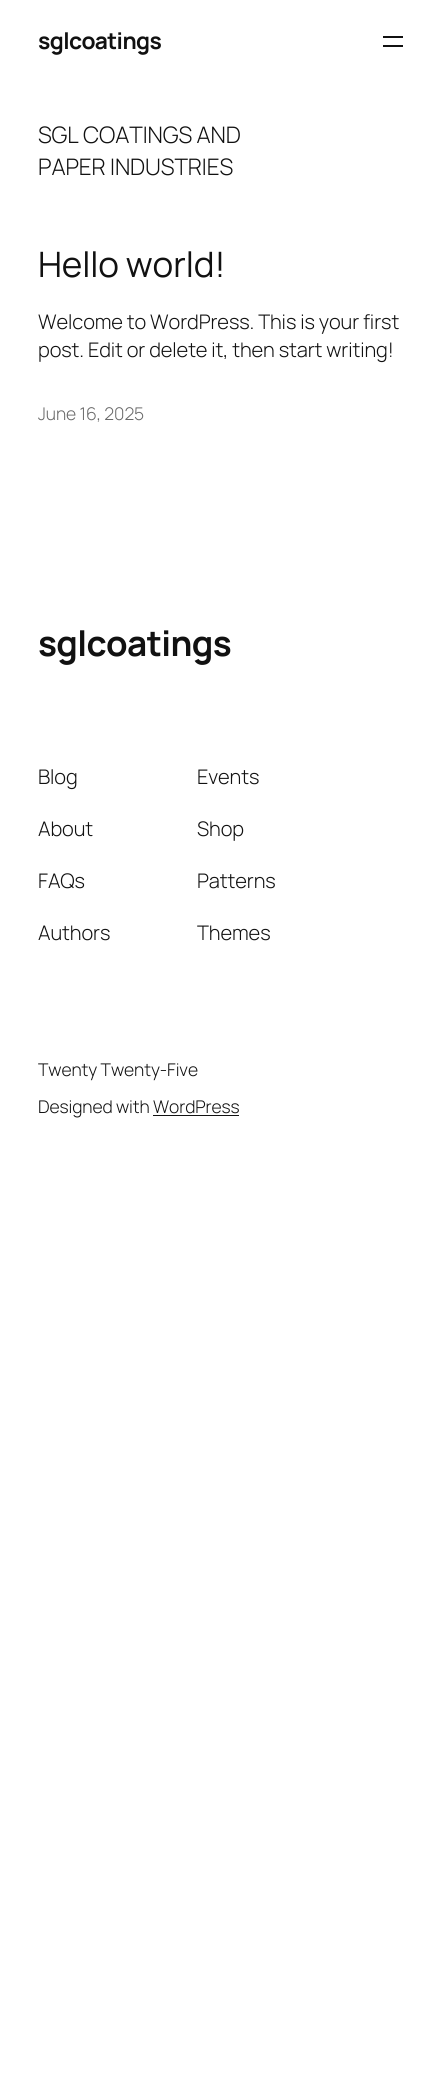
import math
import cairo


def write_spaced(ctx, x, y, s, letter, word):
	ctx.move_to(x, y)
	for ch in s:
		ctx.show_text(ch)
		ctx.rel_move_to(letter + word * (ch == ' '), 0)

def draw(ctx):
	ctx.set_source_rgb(1, 1, 1)
	ctx.paint()
	ctx.select_font_face('Manrope', cairo.FONT_SLANT_NORMAL, cairo.FONT_WEIGHT_BOLD)
	ctx.set_font_size(22.75)
	ctx.set_source_rgb(0.067, 0.067, 0.067)
	write_spaced(ctx, 38, 49, 'sglcoatings', -0.6, 0)
	ctx.rectangle(383, 36, 20, 2)
	ctx.fill()
	ctx.rectangle(383, 45, 20, 2)
	ctx.fill()
	ctx.select_font_face('Manrope Light')
	write_spaced(ctx, 38, 143, 'SGL COATINGS AND', -0.1, 0)
	write_spaced(ctx, 38, 175, 'PAPER INDUSTRIES', -0.1, 0)
	ctx.select_font_face('Manrope')
	ctx.set_font_size(35)
	write_spaced(ctx, 38, 277, 'Hello world!', -0.1, 0)
	ctx.select_font_face('Manrope Light')
	ctx.set_font_size(20.1)
	write_spaced(ctx, 38, 329, 'Welcome to WordPress. This is your first', -0.1, 0)
	write_spaced(ctx, 38, 357, 'post. Edit or delete it, then start writing!', -0.1, 0)
	ctx.set_font_size(17.5)
	ctx.set_source_rgb(0.408, 0.408, 0.408)
	write_spaced(ctx, 38, 420, 'June 16, 2025', -0.1, 0)
	ctx.select_font_face('Manrope', cairo.FONT_SLANT_NORMAL, cairo.FONT_WEIGHT_BOLD)
	ctx.set_font_size(35)
	ctx.set_source_rgb(0.067, 0.067, 0.067)
	write_spaced(ctx, 38, 656, 'sglcoatings', -0.6, 0)
	ctx.select_font_face('Manrope Light')
	ctx.set_font_size(20.1)
	for x, y, s in [
		(38, 784, 'Blog'),
		(38, 836, 'About'),
		(38, 888, 'FAQs'),
		(38, 940, 'Authors'),
		(197, 784, 'Events'),
		(197, 836, 'Shop'),
		(197, 888, 'Patterns'),
		(197, 940, 'Themes'),
	]:
		write_spaced(ctx, x, y, s, -0.1, 0)
	ctx.set_font_size(17.5)
	write_spaced(ctx, 38, 1076, 'Twenty Twenty-Five', -0.1, 0)
	write_spaced(ctx, 38, 1113, 'Designed with WordPress', -0.1, 0)
	ctx.rectangle(153, 1115, 86, 1)
	ctx.fill()


surface = cairo.ImageSurface(cairo.FORMAT_RGB24, 445, 2083)
ctx = cairo.Context(surface)
options = cairo.FontOptions()
options.set_hint_metrics(cairo.HINT_METRICS_OFF)
options.set_hint_style(cairo.HINT_STYLE_NONE)
ctx.set_font_options(options)
ctx.set_miter_limit(4)
draw(ctx)
surface.write_to_png('image.png')
